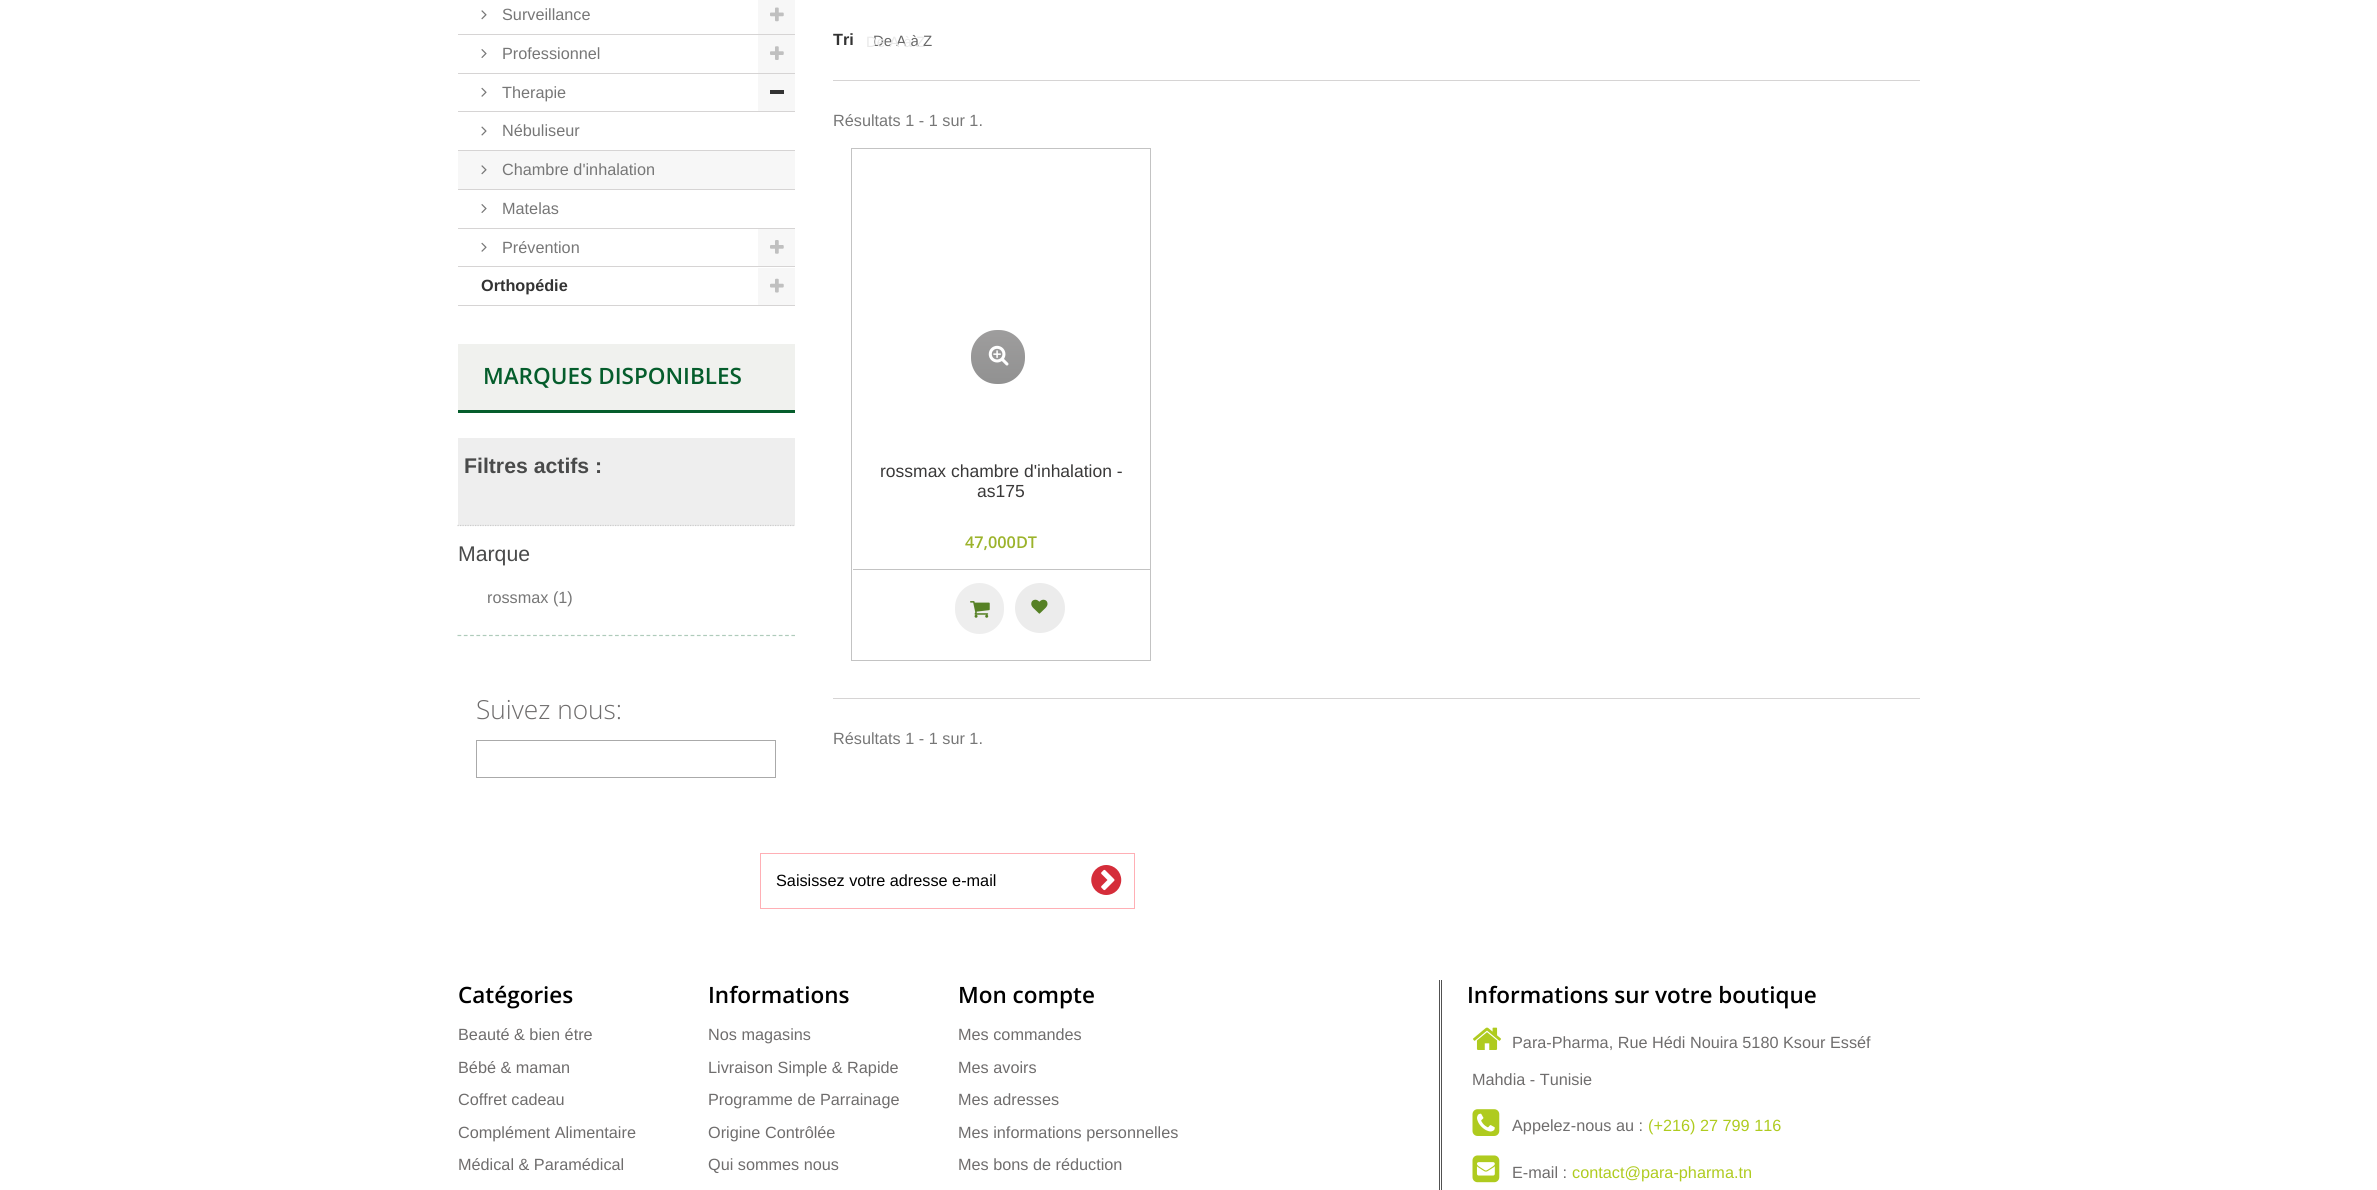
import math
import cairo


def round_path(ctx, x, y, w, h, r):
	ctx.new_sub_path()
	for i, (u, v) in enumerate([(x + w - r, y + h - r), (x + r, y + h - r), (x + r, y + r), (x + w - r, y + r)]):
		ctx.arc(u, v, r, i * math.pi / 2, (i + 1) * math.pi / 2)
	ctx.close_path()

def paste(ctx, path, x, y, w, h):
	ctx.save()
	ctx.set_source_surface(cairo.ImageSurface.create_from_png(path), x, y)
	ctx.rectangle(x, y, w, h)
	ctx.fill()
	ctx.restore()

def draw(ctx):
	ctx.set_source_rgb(1, 1, 1)
	ctx.paint()
	ctx.set_source_rgb(0.839, 0.831, 0.831)
	ctx.rectangle(458, 34, 337, 1)
	ctx.fill()
	paste(ctx, 'media/1.png', 481, 10, 6, 10)
	ctx.select_font_face('Liberation Sans')
	ctx.set_font_size(16.25)
	ctx.set_source_rgb(0.467, 0.467, 0.467)
	ctx.move_to(502, 20)
	ctx.show_text('Surveillance')
	ctx.set_source_rgb(0.965, 0.965, 0.965)
	ctx.rectangle(758, 0, 37, 34)
	ctx.fill()
	paste(ctx, 'media/2.png', 770, 7, 14, 15)
	ctx.set_source_rgb(0.839, 0.831, 0.831)
	ctx.rectangle(458, 73, 337, 1)
	ctx.fill()
	paste(ctx, 'media/3.png', 481, 49, 6, 9)
	ctx.set_source_rgb(0.467, 0.467, 0.467)
	ctx.move_to(502, 59)
	ctx.show_text('Professionnel')
	ctx.set_source_rgb(0.965, 0.965, 0.965)
	ctx.rectangle(758, 35, 37, 38)
	ctx.fill()
	paste(ctx, 'media/4.png', 770, 46, 14, 14)
	ctx.set_source_rgb(0.839, 0.831, 0.831)
	ctx.rectangle(458, 111, 337, 1)
	ctx.fill()
	paste(ctx, 'media/5.png', 481, 87, 6, 10)
	ctx.set_source_rgb(0.467, 0.467, 0.467)
	ctx.move_to(502, 98)
	ctx.show_text('Therapie')
	ctx.set_source_rgb(0.965, 0.965, 0.965)
	ctx.rectangle(758, 74, 37, 37)
	ctx.fill()
	ctx.set_source_rgb(0.2, 0.2, 0.2)
	ctx.rectangle(770, 90, 14, 4)
	ctx.fill()
	ctx.set_source_rgb(0.839, 0.831, 0.831)
	ctx.rectangle(458, 150, 337, 1)
	ctx.fill()
	paste(ctx, 'media/6.png', 481, 126, 6, 10)
	ctx.set_source_rgb(0.467, 0.467, 0.467)
	ctx.move_to(502, 136)
	ctx.show_text('Nébuliseur')
	ctx.set_source_rgb(0.965, 0.965, 0.965)
	ctx.rectangle(458, 151, 337, 38)
	ctx.fill()
	ctx.set_source_rgb(0.839, 0.831, 0.831)
	ctx.rectangle(458, 189, 337, 1)
	ctx.fill()
	paste(ctx, 'media/7.png', 481, 165, 6, 10)
	ctx.set_source_rgb(0.467, 0.467, 0.467)
	ctx.move_to(502, 175)
	ctx.show_text('Chambre d\'inhalation')
	ctx.set_source_rgb(0.839, 0.831, 0.831)
	ctx.rectangle(458, 228, 337, 1)
	ctx.fill()
	paste(ctx, 'media/3.png', 481, 204, 6, 9)
	ctx.set_source_rgb(0.467, 0.467, 0.467)
	ctx.move_to(502, 214)
	ctx.show_text('Matelas')
	ctx.set_source_rgb(0.839, 0.831, 0.831)
	ctx.rectangle(458, 266, 337, 1)
	ctx.fill()
	paste(ctx, 'media/5.png', 481, 242, 6, 10)
	ctx.set_source_rgb(0.467, 0.467, 0.467)
	ctx.move_to(502, 253)
	ctx.show_text('Prévention')
	ctx.set_source_rgb(0.965, 0.965, 0.965)
	ctx.rectangle(758, 229, 37, 37)
	ctx.fill()
	paste(ctx, 'media/8.png', 770, 240, 14, 14)
	ctx.set_source_rgb(0.839, 0.831, 0.831)
	ctx.rectangle(458, 305, 337, 1)
	ctx.fill()
	ctx.select_font_face('Liberation Sans', cairo.FONT_SLANT_NORMAL, cairo.FONT_WEIGHT_BOLD)
	ctx.set_source_rgb(0.2, 0.2, 0.2)
	ctx.move_to(481, 291)
	ctx.show_text('Orthopédie')
	ctx.set_source_rgb(0.965, 0.965, 0.965)
	ctx.rectangle(758, 268, 37, 37)
	ctx.fill()
	paste(ctx, 'media/9.png', 770, 278, 14, 15)
	ctx.set_source_rgb(0.941, 0.945, 0.933)
	ctx.rectangle(458, 344, 337, 66)
	ctx.fill()
	ctx.set_source_rgb(0.02, 0.365, 0.173)
	ctx.rectangle(458, 410, 337, 3)
	ctx.fill()
	ctx.select_font_face('Open Sans SemiBold')
	ctx.set_font_size(22.5)
	ctx.move_to(483, 384)
	ctx.show_text('MARQUES DISPONIBLES')
	ctx.set_source_rgb(0.933, 0.933, 0.933)
	ctx.rectangle(458, 438, 337, 88)
	ctx.fill()
	ctx.new_path()
	ctx.move_to(457.5, 525.5)
	ctx.line_to(795, 525.5)
	ctx.set_source_rgb(0.8, 0.8, 0.8)
	ctx.set_line_width(1.2)
	ctx.set_dash([1.25, 1.25])
	ctx.stroke()
	ctx.select_font_face('Liberation Sans', cairo.FONT_SLANT_NORMAL, cairo.FONT_WEIGHT_BOLD)
	ctx.set_font_size(21.25)
	ctx.set_source_rgb(0.286, 0.29, 0.29)
	ctx.move_to(464, 473)
	ctx.show_text('Filtres actifs :')
	ctx.new_path()
	ctx.move_to(457.5, 635.5)
	ctx.line_to(795, 635.5)
	ctx.set_source_rgb(0.686, 0.796, 0.733)
	ctx.set_dash([3.75, 2.55])
	ctx.stroke()
	ctx.select_font_face('Liberation Sans')
	ctx.set_source_rgb(0.286, 0.29, 0.29)
	ctx.move_to(458, 561)
	ctx.show_text('Marque')
	ctx.set_font_size(16.25)
	ctx.set_source_rgb(0.467, 0.467, 0.467)
	ctx.move_to(487, 603)
	ctx.show_text('rossmax (1)')
	ctx.select_font_face('Open Sans Light')
	ctx.set_font_size(26.25)
	ctx.set_source_rgb(0.435, 0.427, 0.427)
	ctx.move_to(476, 719)
	ctx.show_text('Suivez nous:')
	ctx.rectangle(476.5, 740.5, 299, 37)
	ctx.set_source_rgb(0.667, 0.667, 0.667)
	ctx.set_line_width(1)
	ctx.set_dash([])
	ctx.stroke()
	ctx.set_source_rgb(0.839, 0.831, 0.831)
	ctx.rectangle(833, 80, 1087, 1)
	ctx.fill()
	ctx.select_font_face('Liberation Sans', cairo.FONT_SLANT_NORMAL, cairo.FONT_WEIGHT_BOLD)
	ctx.set_font_size(16.25)
	ctx.set_source_rgb(0.2, 0.2, 0.2)
	ctx.move_to(833, 45)
	ctx.show_text('Tri')
	ctx.select_font_face('Liberation Sans')
	ctx.set_font_size(15)
	ctx.set_source_rgb(0.4, 0.4, 0.4)
	ctx.move_to(873, 46)
	ctx.show_text('De A à Z')
	ctx.set_source_rgb(0.914, 0.914, 0.914)
	ctx.move_to(866, 47)
	ctx.show_text('De A à Z')
	ctx.set_font_size(16.25)
	ctx.set_source_rgb(0.467, 0.467, 0.467)
	ctx.move_to(833, 126)
	ctx.show_text('Résultats 1 - 1 sur 1.')
	ctx.rectangle(851.5, 148.5, 299, 512)
	ctx.set_source_rgb(0.765, 0.765, 0.765)
	ctx.stroke()
	ctx.rectangle(853, 569, 297, 1)
	ctx.fill()
	gradient = cairo.LinearGradient(998, 330, 998, 384)
	gradient.add_color_stop_rgba(0, 0.62, 0.616, 0.616, 1)
	gradient.add_color_stop_rgba(1, 0.569, 0.569, 0.569, 1)
	ctx.set_source(gradient)
	round_path(ctx, 971, 330, 54, 54, 26)
	ctx.fill()
	paste(ctx, 'media/10.png', 988, 345, 21, 21)
	ctx.set_source_rgb(0.933, 0.933, 0.933)
	round_path(ctx, 955, 583, 49, 51, 24.5)
	ctx.fill()
	paste(ctx, 'media/11.png', 970, 601, 20, 17)
	ctx.set_source_rgb(0.925, 0.922, 0.922)
	ctx.arc(1040, 608, 25, 0, 2 * math.pi)
	ctx.fill()
	paste(ctx, 'media/12.png', 1031, 599, 17, 15)
	ctx.set_font_size(17.5)
	ctx.set_source_rgb(0.227, 0.224, 0.224)
	ctx.move_to(880, 477)
	ctx.show_text('rossmax chambre d\'inhalation -')
	ctx.move_to(977, 497)
	ctx.show_text('as175')
	ctx.select_font_face('Open Sans SemiBold')
	ctx.set_font_size(16.25)
	ctx.set_source_rgb(0.612, 0.702, 0.169)
	ctx.move_to(965, 548)
	ctx.show_text('47,000DT')
	ctx.set_source_rgb(0.839, 0.831, 0.831)
	ctx.rectangle(833, 698, 1087, 1)
	ctx.fill()
	ctx.select_font_face('Liberation Sans')
	ctx.set_source_rgb(0.467, 0.467, 0.467)
	ctx.move_to(833, 744)
	ctx.show_text('Résultats 1 - 1 sur 1.')
	ctx.rectangle(760.5, 853.5, 374, 55)
	ctx.set_source_rgb(1, 0.686, 0.71)
	ctx.stroke()
	ctx.set_source_rgb(0, 0, 0)
	ctx.move_to(776, 886)
	ctx.show_text('Saisissez votre adresse e-mail')
	paste(ctx, 'media/13.png', 1091, 865, 31, 30)
	ctx.select_font_face('Open Sans SemiBold')
	ctx.set_font_size(22.5)
	ctx.move_to(458, 1003)
	ctx.show_text('Catégories')
	ctx.select_font_face('Liberation Sans')
	ctx.set_font_size(16.25)
	ctx.set_source_rgb(0.435, 0.427, 0.427)
	for x, y, s in [
		(458, 1040, 'Beauté & bien étre'),
		(458, 1073, 'Bébé & maman'),
		(458, 1105, 'Coffret cadeau'),
		(458, 1138, 'Complément Alimentaire'),
		(458, 1170, 'Médical & Paramédical'),
	]:
		ctx.move_to(x, y)
		ctx.show_text(s)
	ctx.select_font_face('Open Sans SemiBold')
	ctx.set_font_size(22.5)
	ctx.set_source_rgb(0, 0, 0)
	ctx.move_to(708, 1003)
	ctx.show_text('Informations')
	ctx.select_font_face('Liberation Sans')
	ctx.set_font_size(16.25)
	ctx.set_source_rgb(0.435, 0.427, 0.427)
	for x, y, s in [
		(708, 1040, 'Nos magasins'),
		(708, 1073, 'Livraison Simple & Rapide'),
		(708, 1105, 'Programme de Parrainage'),
		(708, 1138, 'Origine Contrôlée'),
		(708, 1170, 'Qui sommes nous'),
	]:
		ctx.move_to(x, y)
		ctx.show_text(s)
	ctx.select_font_face('Open Sans SemiBold')
	ctx.set_font_size(22.5)
	ctx.set_source_rgb(0, 0, 0)
	ctx.move_to(958, 1003)
	ctx.show_text('Mon compte')
	ctx.select_font_face('Liberation Sans')
	ctx.set_font_size(16.25)
	ctx.set_source_rgb(0.435, 0.427, 0.427)
	for x, y, s in [
		(958, 1040, 'Mes commandes'),
		(958, 1073, 'Mes avoirs'),
		(958, 1105, 'Mes adresses'),
		(958, 1138, 'Mes informations personnelles'),
		(958, 1170, 'Mes bons de réduction'),
	]:
		ctx.move_to(x, y)
		ctx.show_text(s)
	ctx.set_source_rgb(0.318, 0.318, 0.318)
	ctx.rectangle(1439, 980, 1, 210)
	ctx.fill()
	ctx.rectangle(1441, 980, 1, 210)
	ctx.fill()
	ctx.select_font_face('Open Sans SemiBold')
	ctx.set_font_size(22.5)
	ctx.set_source_rgb(0, 0, 0)
	ctx.move_to(1467, 1003)
	ctx.show_text('Informations sur votre boutique')
	paste(ctx, 'media/14.png', 1473, 1027, 28, 23)
	ctx.select_font_face('Liberation Sans')
	ctx.set_font_size(16.25)
	ctx.set_source_rgb(0.435, 0.427, 0.427)
	ctx.move_to(1512, 1048)
	ctx.show_text('Para-Pharma, Rue Hédi Nouira 5180 Ksour Esséf')
	ctx.move_to(1472, 1085)
	ctx.show_text('Mahdia - Tunisie')
	paste(ctx, 'media/15.png', 1472, 1109, 28, 27)
	ctx.move_to(1512, 1131)
	ctx.show_text('Appelez-nous au :')
	ctx.set_source_rgb(0.686, 0.796, 0.122)
	ctx.move_to(1648, 1131)
	ctx.show_text('(+216) 27 799 116')
	paste(ctx, 'media/16.png', 1472, 1155, 28, 28)
	ctx.set_source_rgb(0.435, 0.427, 0.427)
	ctx.move_to(1512, 1178)
	ctx.show_text('E-mail :')
	ctx.set_source_rgb(0.686, 0.796, 0.122)
	ctx.move_to(1572, 1178)
	ctx.show_text('contact@para-pharma.tn')


surface = cairo.ImageSurface(cairo.FORMAT_RGB24, 2377, 1190)
ctx = cairo.Context(surface)
options = cairo.FontOptions()
options.set_hint_metrics(cairo.HINT_METRICS_OFF)
options.set_hint_style(cairo.HINT_STYLE_NONE)
ctx.set_font_options(options)
ctx.set_miter_limit(4)
draw(ctx)
surface.write_to_png('image.png')
